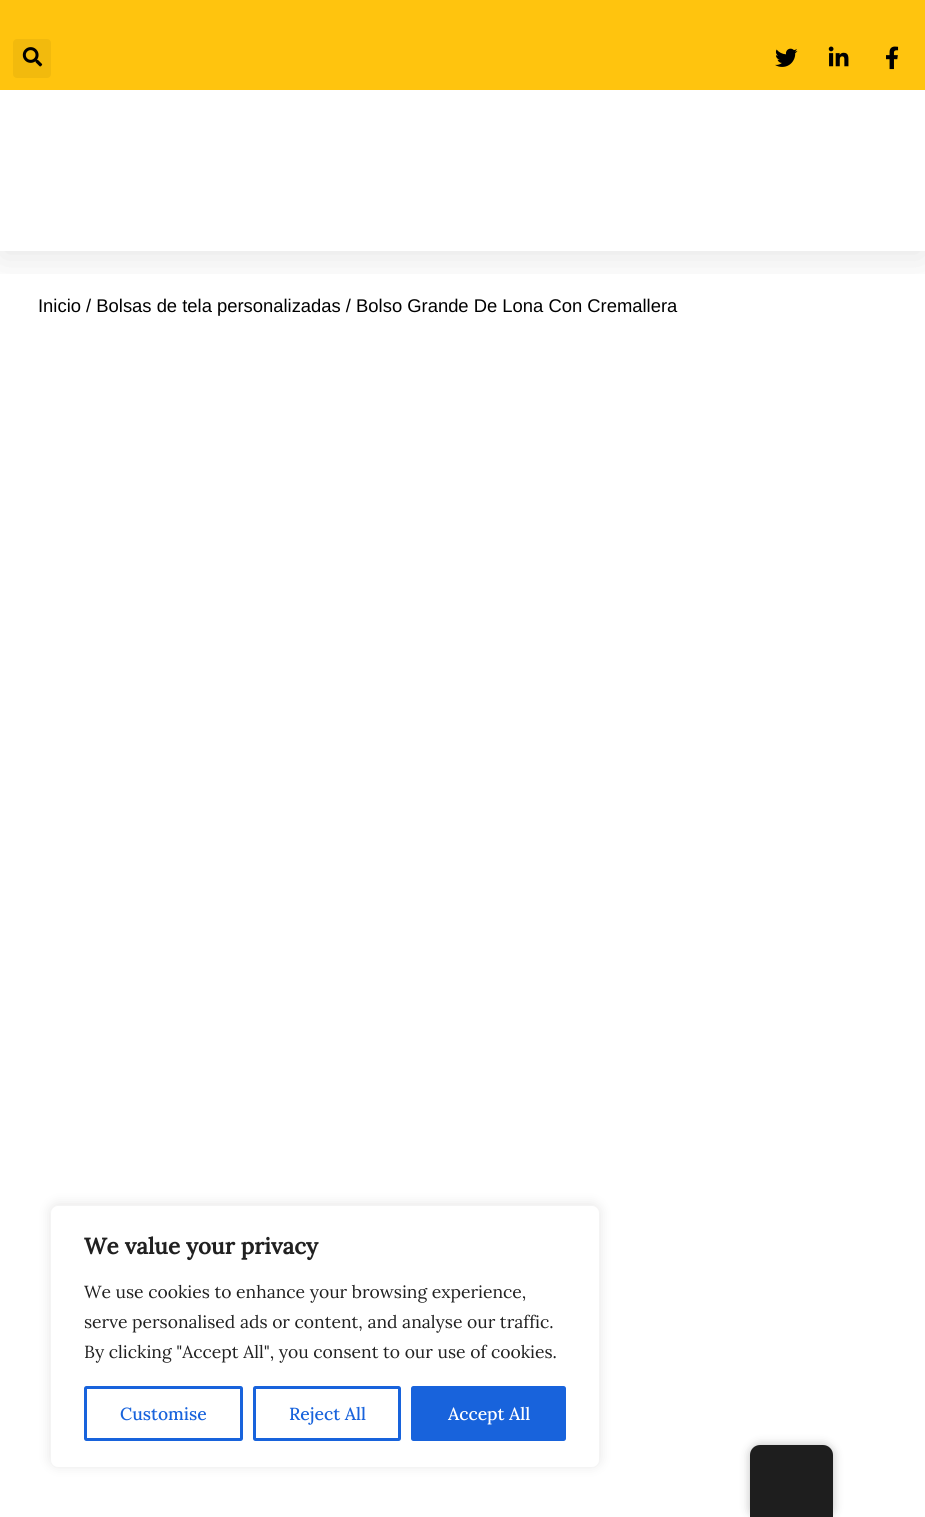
import math
import cairo


def round_path(ctx, x, y, w, h, r):
	ctx.new_sub_path()
	for i, (u, v) in enumerate([(x + w - r, y + h - r), (x + r, y + h - r), (x + r, y + r), (x + w - r, y + r)]):
		ctx.arc(u, v, r, i * math.pi / 2, (i + 1) * math.pi / 2)
	ctx.close_path()

def blur_box(ctx, x, y, w, h, r, blur, alpha):
	ctx.push_group_with_content(cairo.CONTENT_ALPHA)
	ctx.set_operator(cairo.OPERATOR_SOURCE)
	for i in range(15, -16, -2):
		e = blur * i / 6
		if min(w, h) + 2 * e > 0:
			ctx.set_source_rgba(0, 0, 0, alpha * math.erfc((i - 1) / 8.5) / 2)
			round_path(ctx, x - e, y - e, w + 2 * e, h + 2 * e, max(0, min(r + e + blur * .6, min(w, h) / 2 + e)))
			ctx.fill()
	ctx.mask(ctx.pop_group())

def paste(ctx, path, x, y, w, h):
	ctx.save()
	ctx.set_source_surface(cairo.ImageSurface.create_from_png(path), x, y)
	ctx.rectangle(x, y, w, h)
	ctx.fill()
	ctx.restore()

def draw(ctx):
	ctx.set_source_rgb(1, 1, 1)
	ctx.paint()
	ctx.save()
	ctx.rectangle(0, 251, 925, 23)
	ctx.clip()
	ctx.set_source_rgb(0, 0, 0)
	blur_box(ctx, 0, 6, 925, 252, 0, 19, 0.1)
	ctx.restore()
	ctx.set_source_rgb(1, 0.769, 0.055)
	ctx.rectangle(0, 0, 925, 90)
	ctx.fill()
	ctx.set_source_rgb(0.949, 0.729, 0.051)
	round_path(ctx, 13, 39, 38, 39, 4)
	ctx.fill()
	paste(ctx, 'media/1.png', 22, 47, 21, 20)
	paste(ctx, 'media/2.png', 775, 48, 23, 19)
	paste(ctx, 'media/3.png', 828, 46, 21, 21)
	paste(ctx, 'media/4.png', 886, 46, 13, 24)
	ctx.select_font_face('Liberation Sans')
	ctx.set_font_size(18.4)
	ctx.set_source_rgb(0, 0, 0)
	ctx.move_to(38, 312)
	ctx.show_text('Inicio / Bolsas de tela personalizadas / Bolso Grande De Lona Con Cremallera')
	ctx.set_source_rgb(0.675, 0.671, 0.671)
	blur_box(ctx, 50, 1204, 550, 262, 8, 6, 0.3)
	ctx.set_source_rgb(1, 1, 1)
	round_path(ctx, 50.5, 1205.5, 549, 262, 7.5)
	ctx.fill_preserve()
	ctx.set_source_rgb(0.957, 0.957, 0.957)
	ctx.set_line_width(1)
	ctx.stroke()
	ctx.select_font_face('Lora', cairo.FONT_SLANT_NORMAL, cairo.FONT_WEIGHT_BOLD)
	ctx.set_font_size(22.5)
	ctx.set_source_rgb(0.129, 0.129, 0.129)
	ctx.move_to(84, 1254)
	ctx.show_text('We value your privacy')
	ctx.select_font_face('Lora')
	ctx.set_font_size(17.5)
	for x, y, s in [
		(84, 1298, 'We use cookies to enhance your browsing experience,'),
		(84, 1328, 'serve personalised ads or content, and analyse our traffic.'),
		(84, 1358, 'By clicking "Accept All", you consent to our use of cookies.'),
	]:
		ctx.move_to(x, y)
		ctx.show_text(s)
	round_path(ctx, 85.5, 1387.5, 156, 52, 1)
	ctx.set_source_rgb(0.094, 0.388, 0.863)
	ctx.set_line_width(3)
	ctx.stroke()
	ctx.select_font_face('Lora Medium')
	ctx.move_to(120, 1420)
	ctx.show_text('Customise')
	round_path(ctx, 254.5, 1387.5, 145, 52, 1)
	ctx.stroke()
	ctx.move_to(289, 1420)
	ctx.show_text('Reject All')
	round_path(ctx, 412.5, 1387.5, 152, 52, 1)
	ctx.fill_preserve()
	ctx.stroke()
	ctx.set_source_rgb(1, 1, 1)
	ctx.move_to(448, 1420)
	ctx.show_text('Accept All')
	ctx.set_source_rgb(0, 0, 0)
	blur_box(ctx, 750, 1445, 83, 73, 10, 5, 0.25)
	ctx.set_source_rgb(0.118, 0.118, 0.118)
	ctx.new_path()
	ctx.move_to(760, 1445)
	ctx.line_to(823, 1445)
	ctx.curve_to(828.5, 1445, 833, 1449.5, 833, 1455)
	ctx.line_to(833, 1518)
	ctx.line_to(750, 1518)
	ctx.line_to(750, 1455)
	ctx.curve_to(750, 1449.5, 754.5, 1445, 760, 1445)
	ctx.close_path()
	ctx.fill()


surface = cairo.ImageSurface(cairo.FORMAT_RGB24, 925, 1517)
ctx = cairo.Context(surface)
options = cairo.FontOptions()
options.set_hint_metrics(cairo.HINT_METRICS_OFF)
options.set_hint_style(cairo.HINT_STYLE_NONE)
ctx.set_font_options(options)
ctx.set_miter_limit(4)
draw(ctx)
surface.write_to_png('image.png')
